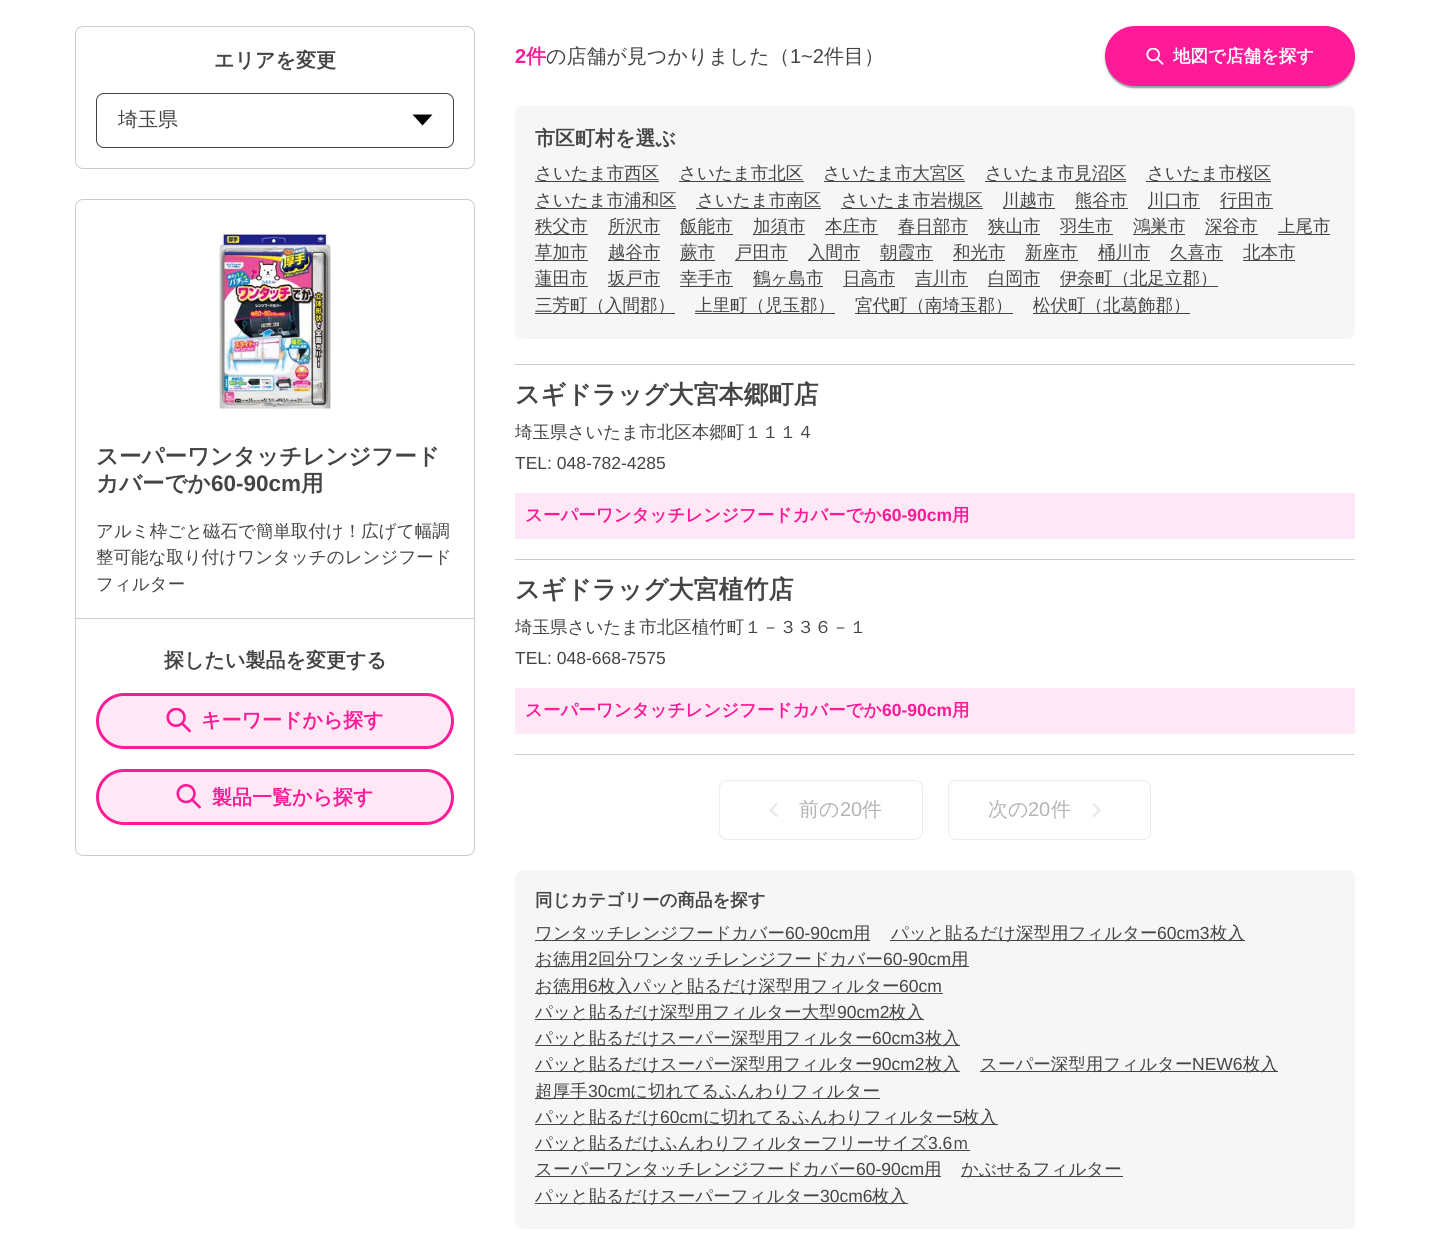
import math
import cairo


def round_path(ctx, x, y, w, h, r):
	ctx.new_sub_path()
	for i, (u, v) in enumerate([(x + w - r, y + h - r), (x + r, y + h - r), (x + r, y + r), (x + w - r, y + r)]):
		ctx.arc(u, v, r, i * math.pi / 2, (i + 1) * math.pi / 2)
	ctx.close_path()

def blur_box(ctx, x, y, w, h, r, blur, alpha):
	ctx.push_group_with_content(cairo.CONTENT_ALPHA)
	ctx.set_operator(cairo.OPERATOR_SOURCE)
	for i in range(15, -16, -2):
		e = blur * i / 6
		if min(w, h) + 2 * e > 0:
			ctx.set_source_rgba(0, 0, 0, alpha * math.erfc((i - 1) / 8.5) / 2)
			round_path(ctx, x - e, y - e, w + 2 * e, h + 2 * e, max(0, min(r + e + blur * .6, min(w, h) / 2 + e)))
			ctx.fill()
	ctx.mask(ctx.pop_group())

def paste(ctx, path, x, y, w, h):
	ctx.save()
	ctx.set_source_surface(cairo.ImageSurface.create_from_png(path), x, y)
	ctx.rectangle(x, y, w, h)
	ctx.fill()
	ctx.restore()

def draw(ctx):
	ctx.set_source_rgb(1, 1, 1)
	ctx.paint()
	round_path(ctx, 75.5, 26.5, 399, 142, 7.5)
	ctx.set_source_rgb(0.8, 0.8, 0.8)
	ctx.set_line_width(1)
	ctx.stroke()
	ctx.select_font_face('WenQuanYi Zen Hei', cairo.FONT_SLANT_NORMAL, cairo.FONT_WEIGHT_BOLD)
	ctx.set_font_size(20)
	ctx.set_source_rgb(0.267, 0.267, 0.267)
	ctx.move_to(214, 67)
	ctx.show_text('エリアを変更')
	round_path(ctx, 96.5, 93.5, 357, 54, 7.5)
	ctx.stroke()
	ctx.select_font_face('WenQuanYi Zen Hei Medium')
	ctx.move_to(118, 126)
	ctx.show_text('埼玉県')
	ctx.set_source_rgb(0, 0, 0)
	ctx.new_path()
	ctx.move_to(422.5, 125.5)
	ctx.line_to(412.5, 114.5)
	ctx.line_to(432.5, 114.5)
	ctx.close_path()
	ctx.fill()
	round_path(ctx, 75.5, 199.5, 399, 656, 7.5)
	ctx.set_source_rgb(0.8, 0.8, 0.8)
	ctx.stroke()
	paste(ctx, 'media/1.png', 219, 232, 112, 178)
	ctx.select_font_face('WenQuanYi Zen Hei', cairo.FONT_SLANT_NORMAL, cairo.FONT_WEIGHT_BOLD)
	ctx.set_font_size(22.5)
	ctx.set_source_rgb(0.267, 0.267, 0.267)
	ctx.move_to(96, 464)
	ctx.show_text('スーパーワンタッチレンジフード')
	ctx.move_to(96, 491)
	ctx.show_text('カバーでか')
	ctx.select_font_face('Liberation Sans', cairo.FONT_SLANT_NORMAL, cairo.FONT_WEIGHT_BOLD)
	ctx.move_to(211, 491)
	ctx.show_text('60-90cm')
	ctx.select_font_face('WenQuanYi Zen Hei', cairo.FONT_SLANT_NORMAL, cairo.FONT_WEIGHT_BOLD)
	ctx.move_to(301, 491)
	ctx.show_text('用')
	ctx.select_font_face('WenQuanYi Zen Hei Medium')
	ctx.set_font_size(17.5)
	for x, y, s in [
		(96, 537, 'アルミ枠ごと磁石で簡単取付け！広げて幅調'),
		(96, 563, '整可能な取り付けワンタッチのレンジフード'),
		(96, 590, 'フィルター'),
	]:
		ctx.move_to(x, y)
		ctx.show_text(s)
	ctx.set_source_rgb(0.8, 0.8, 0.8)
	ctx.rectangle(76, 618, 398, 1)
	ctx.fill()
	ctx.select_font_face('WenQuanYi Zen Hei', cairo.FONT_SLANT_NORMAL, cairo.FONT_WEIGHT_BOLD)
	ctx.set_font_size(20)
	ctx.set_source_rgb(0.267, 0.267, 0.267)
	ctx.move_to(164, 667)
	ctx.show_text('探したい製品を変更する')
	ctx.set_source_rgb(1, 0.91, 0.961)
	round_path(ctx, 97.5, 694.5, 355, 53, 26.5)
	ctx.fill_preserve()
	ctx.set_source_rgb(1, 0.102, 0.596)
	ctx.set_line_width(3)
	ctx.stroke()
	paste(ctx, 'media/2.png', 166, 708, 25, 25)
	ctx.move_to(201, 727)
	ctx.show_text('キーワードから探す')
	ctx.set_source_rgb(1, 0.91, 0.961)
	round_path(ctx, 97.5, 770.5, 355, 53, 26.5)
	ctx.fill_preserve()
	ctx.set_source_rgb(1, 0.102, 0.596)
	ctx.stroke()
	paste(ctx, 'media/3.png', 176, 784, 25, 25)
	ctx.move_to(212, 804)
	ctx.show_text('製品一覧から探す')
	ctx.select_font_face('Liberation Sans', cairo.FONT_SLANT_NORMAL, cairo.FONT_WEIGHT_BOLD)
	ctx.move_to(515, 63)
	ctx.show_text('2')
	ctx.select_font_face('WenQuanYi Zen Hei', cairo.FONT_SLANT_NORMAL, cairo.FONT_WEIGHT_BOLD)
	ctx.move_to(526, 63)
	ctx.show_text('件')
	ctx.select_font_face('WenQuanYi Zen Hei Medium')
	ctx.set_source_rgb(0.267, 0.267, 0.267)
	ctx.move_to(546, 63)
	ctx.show_text('の店舗が見つかりました（')
	ctx.select_font_face('Liberation Sans')
	ctx.move_to(790, 63)
	ctx.show_text('1~2')
	ctx.select_font_face('WenQuanYi Zen Hei Medium')
	ctx.move_to(824, 63)
	ctx.show_text('件目）')
	ctx.set_source_rgb(0, 0, 0)
	blur_box(ctx, 1105, 28, 250, 60, 30, 2, 0.12)
	blur_box(ctx, 1105, 28, 250, 60, 30, 0.5, 0.14)
	blur_box(ctx, 1106, 30, 248, 58, 29, 0.5, 0.2)
	ctx.set_source_rgb(1, 0.102, 0.596)
	round_path(ctx, 1105, 26, 250, 60, 30)
	ctx.fill()
	paste(ctx, 'media/4.png', 1146, 48, 18, 17)
	ctx.select_font_face('WenQuanYi Zen Hei', cairo.FONT_SLANT_NORMAL, cairo.FONT_WEIGHT_BOLD)
	ctx.set_font_size(17.5)
	ctx.set_source_rgb(1, 1, 1)
	ctx.move_to(1173, 62)
	ctx.show_text('地図で店舗を探す')
	ctx.set_source_rgb(0.961, 0.961, 0.961)
	round_path(ctx, 515, 106, 840, 233, 8)
	ctx.fill()
	ctx.set_font_size(20)
	ctx.set_source_rgb(0.267, 0.267, 0.267)
	ctx.move_to(535, 145)
	ctx.show_text('市区町村を選ぶ')
	ctx.rectangle(535, 181, 124, 1)
	ctx.fill()
	ctx.select_font_face('WenQuanYi Zen Hei Medium')
	ctx.set_font_size(17.5)
	ctx.move_to(535, 179)
	ctx.show_text('さいたま市西区')
	ctx.rectangle(679, 181, 125, 1)
	ctx.fill()
	ctx.move_to(679, 179)
	ctx.show_text('さいたま市北区')
	ctx.rectangle(824, 181, 141, 1)
	ctx.fill()
	ctx.move_to(823, 179)
	ctx.show_text('さいたま市大宮区')
	ctx.rectangle(985, 181, 141, 1)
	ctx.fill()
	ctx.move_to(985, 179)
	ctx.show_text('さいたま市見沼区')
	ctx.rectangle(1146, 181, 125, 1)
	ctx.fill()
	ctx.move_to(1147, 179)
	ctx.show_text('さいたま市桜区')
	ctx.rectangle(535, 208, 141, 1)
	ctx.fill()
	ctx.move_to(535, 206)
	ctx.show_text('さいたま市浦和区')
	ctx.rectangle(696, 208, 125, 1)
	ctx.fill()
	ctx.move_to(697, 206)
	ctx.show_text('さいたま市南区')
	ctx.rectangle(841, 208, 142, 1)
	ctx.fill()
	ctx.move_to(841, 206)
	ctx.show_text('さいたま市岩槻区')
	ctx.rectangle(1003, 208, 52, 1)
	ctx.fill()
	ctx.move_to(1002, 206)
	ctx.show_text('川越市')
	ctx.rectangle(1075, 208, 53, 1)
	ctx.fill()
	ctx.move_to(1075, 206)
	ctx.show_text('熊谷市')
	ctx.rectangle(1148, 208, 52, 1)
	ctx.fill()
	ctx.move_to(1147, 206)
	ctx.show_text('川口市')
	ctx.rectangle(1220, 208, 53, 1)
	ctx.fill()
	ctx.move_to(1220, 206)
	ctx.show_text('行田市')
	ctx.rectangle(535, 234, 53, 1)
	ctx.fill()
	ctx.move_to(535, 232)
	ctx.show_text('秩父市')
	ctx.rectangle(608, 234, 52, 1)
	ctx.fill()
	ctx.move_to(608, 232)
	ctx.show_text('所沢市')
	ctx.rectangle(680, 234, 53, 1)
	ctx.fill()
	ctx.move_to(680, 232)
	ctx.show_text('飯能市')
	ctx.rectangle(753, 234, 52, 1)
	ctx.fill()
	ctx.move_to(753, 232)
	ctx.show_text('加須市')
	ctx.rectangle(825, 234, 53, 1)
	ctx.fill()
	ctx.move_to(825, 232)
	ctx.show_text('本庄市')
	ctx.rectangle(898, 234, 70, 1)
	ctx.fill()
	ctx.move_to(898, 232)
	ctx.show_text('春日部市')
	ctx.rectangle(988, 234, 52, 1)
	ctx.fill()
	ctx.move_to(988, 232)
	ctx.show_text('狭山市')
	ctx.rectangle(1060, 234, 53, 1)
	ctx.fill()
	ctx.move_to(1060, 232)
	ctx.show_text('羽生市')
	ctx.rectangle(1133, 234, 52, 1)
	ctx.fill()
	ctx.move_to(1133, 232)
	ctx.show_text('鴻巣市')
	ctx.rectangle(1205, 234, 53, 1)
	ctx.fill()
	ctx.move_to(1205, 232)
	ctx.show_text('深谷市')
	ctx.rectangle(1278, 234, 52, 1)
	ctx.fill()
	ctx.move_to(1278, 232)
	ctx.show_text('上尾市')
	ctx.rectangle(535, 260, 53, 1)
	ctx.fill()
	ctx.move_to(535, 258)
	ctx.show_text('草加市')
	ctx.rectangle(608, 260, 52, 1)
	ctx.fill()
	ctx.move_to(608, 258)
	ctx.show_text('越谷市')
	ctx.rectangle(680, 260, 35, 1)
	ctx.fill()
	ctx.move_to(680, 258)
	ctx.show_text('蕨市')
	ctx.rectangle(735, 260, 53, 1)
	ctx.fill()
	ctx.move_to(735, 258)
	ctx.show_text('戸田市')
	ctx.rectangle(808, 260, 52, 1)
	ctx.fill()
	ctx.move_to(808, 258)
	ctx.show_text('入間市')
	ctx.rectangle(880, 260, 53, 1)
	ctx.fill()
	ctx.move_to(880, 258)
	ctx.show_text('朝霞市')
	ctx.rectangle(953, 260, 52, 1)
	ctx.fill()
	ctx.move_to(953, 258)
	ctx.show_text('和光市')
	ctx.rectangle(1025, 260, 53, 1)
	ctx.fill()
	ctx.move_to(1025, 258)
	ctx.show_text('新座市')
	ctx.rectangle(1098, 260, 52, 1)
	ctx.fill()
	ctx.move_to(1098, 258)
	ctx.show_text('桶川市')
	ctx.rectangle(1170, 260, 53, 1)
	ctx.fill()
	ctx.move_to(1170, 258)
	ctx.show_text('久喜市')
	ctx.rectangle(1243, 260, 52, 1)
	ctx.fill()
	ctx.move_to(1243, 258)
	ctx.show_text('北本市')
	ctx.rectangle(535, 286, 53, 1)
	ctx.fill()
	ctx.move_to(535, 284)
	ctx.show_text('蓮田市')
	ctx.rectangle(608, 286, 52, 1)
	ctx.fill()
	ctx.move_to(608, 284)
	ctx.show_text('坂戸市')
	ctx.rectangle(680, 286, 53, 1)
	ctx.fill()
	ctx.move_to(680, 284)
	ctx.show_text('幸手市')
	ctx.rectangle(753, 286, 70, 1)
	ctx.fill()
	ctx.move_to(753, 284)
	ctx.show_text('鶴ヶ島市')
	ctx.rectangle(843, 286, 52, 1)
	ctx.fill()
	ctx.move_to(843, 284)
	ctx.show_text('日高市')
	ctx.rectangle(915, 286, 53, 1)
	ctx.fill()
	ctx.move_to(915, 284)
	ctx.show_text('吉川市')
	ctx.rectangle(988, 286, 52, 1)
	ctx.fill()
	ctx.move_to(988, 284)
	ctx.show_text('白岡市')
	ctx.rectangle(1060, 286, 158, 1)
	ctx.fill()
	ctx.move_to(1060, 284)
	ctx.show_text('伊奈町（北足立郡）')
	ctx.rectangle(535, 313, 140, 1)
	ctx.fill()
	ctx.move_to(535, 311)
	ctx.show_text('三芳町（入間郡）')
	ctx.rectangle(695, 313, 140, 1)
	ctx.fill()
	ctx.move_to(695, 311)
	ctx.show_text('上里町（児玉郡）')
	ctx.rectangle(855, 313, 158, 1)
	ctx.fill()
	ctx.move_to(855, 311)
	ctx.show_text('宮代町（南埼玉郡）')
	ctx.rectangle(1033, 313, 157, 1)
	ctx.fill()
	ctx.move_to(1033, 311)
	ctx.show_text('松伏町（北葛飾郡）')
	ctx.set_source_rgb(0.8, 0.8, 0.8)
	ctx.rectangle(515, 364, 840, 1)
	ctx.fill()
	ctx.rectangle(515, 559, 840, 1)
	ctx.fill()
	ctx.select_font_face('WenQuanYi Zen Hei', cairo.FONT_SLANT_NORMAL, cairo.FONT_WEIGHT_BOLD)
	ctx.set_font_size(25)
	ctx.set_source_rgb(0.267, 0.267, 0.267)
	ctx.move_to(515, 403)
	ctx.show_text('スギドラッグ大宮本郷町店')
	ctx.select_font_face('WenQuanYi Zen Hei Medium')
	ctx.set_font_size(17.5)
	ctx.move_to(515, 438)
	ctx.show_text('埼玉県さいたま市北区本郷町１１１４')
	ctx.select_font_face('Liberation Sans')
	ctx.move_to(515, 469)
	ctx.show_text('TEL: 048-782-4285')
	ctx.set_source_rgb(1, 0.91, 0.961)
	ctx.rectangle(515, 493, 840, 46)
	ctx.fill()
	ctx.select_font_face('WenQuanYi Zen Hei', cairo.FONT_SLANT_NORMAL, cairo.FONT_WEIGHT_BOLD)
	ctx.set_source_rgb(1, 0.102, 0.596)
	ctx.move_to(525, 521)
	ctx.show_text('スーパーワンタッチレンジフードカバーでか')
	ctx.select_font_face('Liberation Sans', cairo.FONT_SLANT_NORMAL, cairo.FONT_WEIGHT_BOLD)
	ctx.move_to(882, 521)
	ctx.show_text('60-90cm')
	ctx.select_font_face('WenQuanYi Zen Hei', cairo.FONT_SLANT_NORMAL, cairo.FONT_WEIGHT_BOLD)
	ctx.move_to(952, 521)
	ctx.show_text('用')
	ctx.set_source_rgb(0.8, 0.8, 0.8)
	ctx.rectangle(515, 754, 840, 1)
	ctx.fill()
	ctx.set_font_size(25)
	ctx.set_source_rgb(0.267, 0.267, 0.267)
	ctx.move_to(515, 598)
	ctx.show_text('スギドラッグ大宮植竹店')
	ctx.select_font_face('WenQuanYi Zen Hei Medium')
	ctx.set_font_size(17.5)
	ctx.move_to(515, 633)
	ctx.show_text('埼玉県さいたま市北区植竹町１－３３６－１')
	ctx.select_font_face('Liberation Sans')
	ctx.move_to(515, 664)
	ctx.show_text('TEL: 048-668-7575')
	ctx.set_source_rgb(1, 0.91, 0.961)
	ctx.rectangle(515, 688, 840, 46)
	ctx.fill()
	ctx.select_font_face('WenQuanYi Zen Hei', cairo.FONT_SLANT_NORMAL, cairo.FONT_WEIGHT_BOLD)
	ctx.set_source_rgb(1, 0.102, 0.596)
	ctx.move_to(525, 716)
	ctx.show_text('スーパーワンタッチレンジフードカバーでか')
	ctx.select_font_face('Liberation Sans', cairo.FONT_SLANT_NORMAL, cairo.FONT_WEIGHT_BOLD)
	ctx.move_to(882, 716)
	ctx.show_text('60-90cm')
	ctx.select_font_face('WenQuanYi Zen Hei', cairo.FONT_SLANT_NORMAL, cairo.FONT_WEIGHT_BOLD)
	ctx.move_to(952, 716)
	ctx.show_text('用')
	round_path(ctx, 719.5, 780.5, 203, 59, 7.5)
	ctx.set_source_rgb(0.922, 0.922, 0.922)
	ctx.set_line_width(1)
	ctx.stroke()
	paste(ctx, 'media/5.png', 769, 802, 9, 16)
	ctx.select_font_face('WenQuanYi Zen Hei Medium')
	ctx.set_font_size(20)
	ctx.set_source_rgb(0.706, 0.706, 0.706)
	ctx.move_to(799, 816)
	ctx.show_text('前の')
	ctx.select_font_face('Liberation Sans')
	ctx.move_to(840, 816)
	ctx.show_text('20')
	ctx.select_font_face('WenQuanYi Zen Hei Medium')
	ctx.move_to(862, 816)
	ctx.show_text('件')
	round_path(ctx, 948.5, 780.5, 202, 59, 7.5)
	ctx.set_source_rgb(0.922, 0.922, 0.922)
	ctx.stroke()
	ctx.set_source_rgb(0.706, 0.706, 0.706)
	ctx.move_to(988, 816)
	ctx.show_text('次の')
	ctx.select_font_face('Liberation Sans')
	ctx.move_to(1028, 816)
	ctx.show_text('20')
	ctx.select_font_face('WenQuanYi Zen Hei Medium')
	ctx.move_to(1051, 816)
	ctx.show_text('件')
	paste(ctx, 'media/6.png', 1092, 802, 9, 16)
	ctx.set_source_rgb(0.961, 0.961, 0.961)
	round_path(ctx, 515, 870, 840, 359, 8)
	ctx.fill()
	ctx.select_font_face('WenQuanYi Zen Hei', cairo.FONT_SLANT_NORMAL, cairo.FONT_WEIGHT_BOLD)
	ctx.set_font_size(17.5)
	ctx.set_source_rgb(0.267, 0.267, 0.267)
	ctx.move_to(535, 906)
	ctx.show_text('同じカテゴリーの商品を探す')
	ctx.rectangle(535, 940, 335, 1)
	ctx.fill()
	ctx.select_font_face('WenQuanYi Zen Hei Medium')
	ctx.move_to(535, 939)
	ctx.show_text('ワンタッチレンジフードカバー')
	ctx.select_font_face('Liberation Sans')
	ctx.move_to(785, 939)
	ctx.show_text('60-90cm')
	ctx.select_font_face('WenQuanYi Zen Hei Medium')
	ctx.move_to(853, 939)
	ctx.show_text('用')
	ctx.rectangle(890, 940, 355, 1)
	ctx.fill()
	ctx.move_to(891, 939)
	ctx.show_text('パッと貼るだけ深型用フィルター')
	ctx.select_font_face('Liberation Sans')
	ctx.move_to(1157, 939)
	ctx.show_text('60cm3')
	ctx.select_font_face('WenQuanYi Zen Hei Medium')
	ctx.move_to(1210, 939)
	ctx.show_text('枚入')
	ctx.rectangle(535, 966, 434, 1)
	ctx.fill()
	ctx.move_to(535, 965)
	ctx.show_text('お徳用')
	ctx.select_font_face('Liberation Sans')
	ctx.move_to(588, 965)
	ctx.show_text('2')
	ctx.select_font_face('WenQuanYi Zen Hei Medium')
	ctx.move_to(598, 965)
	ctx.show_text('回分ワンタッチレンジフードカバー')
	ctx.select_font_face('Liberation Sans')
	ctx.move_to(883, 965)
	ctx.show_text('60-90cm')
	ctx.select_font_face('WenQuanYi Zen Hei Medium')
	ctx.move_to(951, 965)
	ctx.show_text('用')
	ctx.rectangle(535, 993, 408, 1)
	ctx.fill()
	ctx.move_to(535, 992)
	ctx.show_text('お徳用')
	ctx.select_font_face('Liberation Sans')
	ctx.move_to(588, 992)
	ctx.show_text('6')
	ctx.select_font_face('WenQuanYi Zen Hei Medium')
	ctx.move_to(598, 992)
	ctx.show_text('枚入パッと貼るだけ深型用フィルター')
	ctx.select_font_face('Liberation Sans')
	ctx.move_to(899, 992)
	ctx.show_text('60cm')
	ctx.rectangle(535, 1019, 389, 1)
	ctx.fill()
	ctx.select_font_face('WenQuanYi Zen Hei Medium')
	ctx.move_to(535, 1018)
	ctx.show_text('パッと貼るだけ深型用フィルター大型')
	ctx.select_font_face('Liberation Sans')
	ctx.move_to(837, 1018)
	ctx.show_text('90cm2')
	ctx.select_font_face('WenQuanYi Zen Hei Medium')
	ctx.move_to(889, 1018)
	ctx.show_text('枚入')
	ctx.rectangle(535, 1045, 425, 1)
	ctx.fill()
	ctx.move_to(535, 1044)
	ctx.show_text('パッと貼るだけスーパー深型用フィルター')
	ctx.select_font_face('Liberation Sans')
	ctx.move_to(872, 1044)
	ctx.show_text('60cm3')
	ctx.select_font_face('WenQuanYi Zen Hei Medium')
	ctx.move_to(925, 1044)
	ctx.show_text('枚入')
	ctx.rectangle(535, 1071, 425, 1)
	ctx.fill()
	ctx.move_to(535, 1070)
	ctx.show_text('パッと貼るだけスーパー深型用フィルター')
	ctx.select_font_face('Liberation Sans')
	ctx.move_to(872, 1070)
	ctx.show_text('90cm2')
	ctx.select_font_face('WenQuanYi Zen Hei Medium')
	ctx.move_to(925, 1070)
	ctx.show_text('枚入')
	ctx.rectangle(980, 1071, 298, 1)
	ctx.fill()
	ctx.move_to(980, 1070)
	ctx.show_text('スーパー深型用フィルター')
	ctx.select_font_face('Liberation Sans')
	ctx.move_to(1192, 1070)
	ctx.show_text('NEW6')
	ctx.select_font_face('WenQuanYi Zen Hei Medium')
	ctx.move_to(1243, 1070)
	ctx.show_text('枚入')
	ctx.rectangle(535, 1098, 345, 1)
	ctx.fill()
	ctx.move_to(535, 1097)
	ctx.show_text('超厚手')
	ctx.select_font_face('Liberation Sans')
	ctx.move_to(588, 1097)
	ctx.show_text('30cm')
	ctx.select_font_face('WenQuanYi Zen Hei Medium')
	ctx.move_to(630, 1097)
	ctx.show_text('に切れてるふんわりフィルター')
	ctx.rectangle(535, 1124, 463, 1)
	ctx.fill()
	ctx.move_to(535, 1123)
	ctx.show_text('パッと貼るだけ')
	ctx.select_font_face('Liberation Sans')
	ctx.move_to(660, 1123)
	ctx.show_text('60cm')
	ctx.select_font_face('WenQuanYi Zen Hei Medium')
	ctx.move_to(703, 1123)
	ctx.show_text('に切れてるふんわりフィルター')
	ctx.select_font_face('Liberation Sans')
	ctx.move_to(953, 1123)
	ctx.show_text('5')
	ctx.select_font_face('WenQuanYi Zen Hei Medium')
	ctx.move_to(962, 1123)
	ctx.show_text('枚入')
	ctx.rectangle(535, 1150, 435, 1)
	ctx.fill()
	ctx.move_to(535, 1149)
	ctx.show_text('パッと貼るだけふんわりフィルターフリーサイズ')
	ctx.select_font_face('Liberation Sans')
	ctx.move_to(928, 1149)
	ctx.show_text('3.6')
	ctx.select_font_face('WenQuanYi Zen Hei Medium')
	ctx.move_to(952, 1149)
	ctx.show_text('ｍ')
	ctx.rectangle(535, 1176, 406, 1)
	ctx.fill()
	ctx.move_to(535, 1175)
	ctx.show_text('スーパーワンタッチレンジフードカバー')
	ctx.select_font_face('Liberation Sans')
	ctx.move_to(856, 1175)
	ctx.show_text('60-90cm')
	ctx.select_font_face('WenQuanYi Zen Hei Medium')
	ctx.move_to(924, 1175)
	ctx.show_text('用')
	ctx.rectangle(961, 1176, 162, 1)
	ctx.fill()
	ctx.move_to(961, 1175)
	ctx.show_text('かぶせるフィルター')
	ctx.rectangle(535, 1203, 373, 1)
	ctx.fill()
	ctx.move_to(535, 1202)
	ctx.show_text('パッと貼るだけスーパーフィルター')
	ctx.select_font_face('Liberation Sans')
	ctx.move_to(820, 1202)
	ctx.show_text('30cm6')
	ctx.select_font_face('WenQuanYi Zen Hei Medium')
	ctx.move_to(872, 1202)
	ctx.show_text('枚入')


surface = cairo.ImageSurface(cairo.FORMAT_RGB24, 1430, 1234)
ctx = cairo.Context(surface)
options = cairo.FontOptions()
options.set_hint_metrics(cairo.HINT_METRICS_OFF)
options.set_hint_style(cairo.HINT_STYLE_NONE)
ctx.set_font_options(options)
ctx.set_miter_limit(4)
draw(ctx)
surface.write_to_png('image.png')
